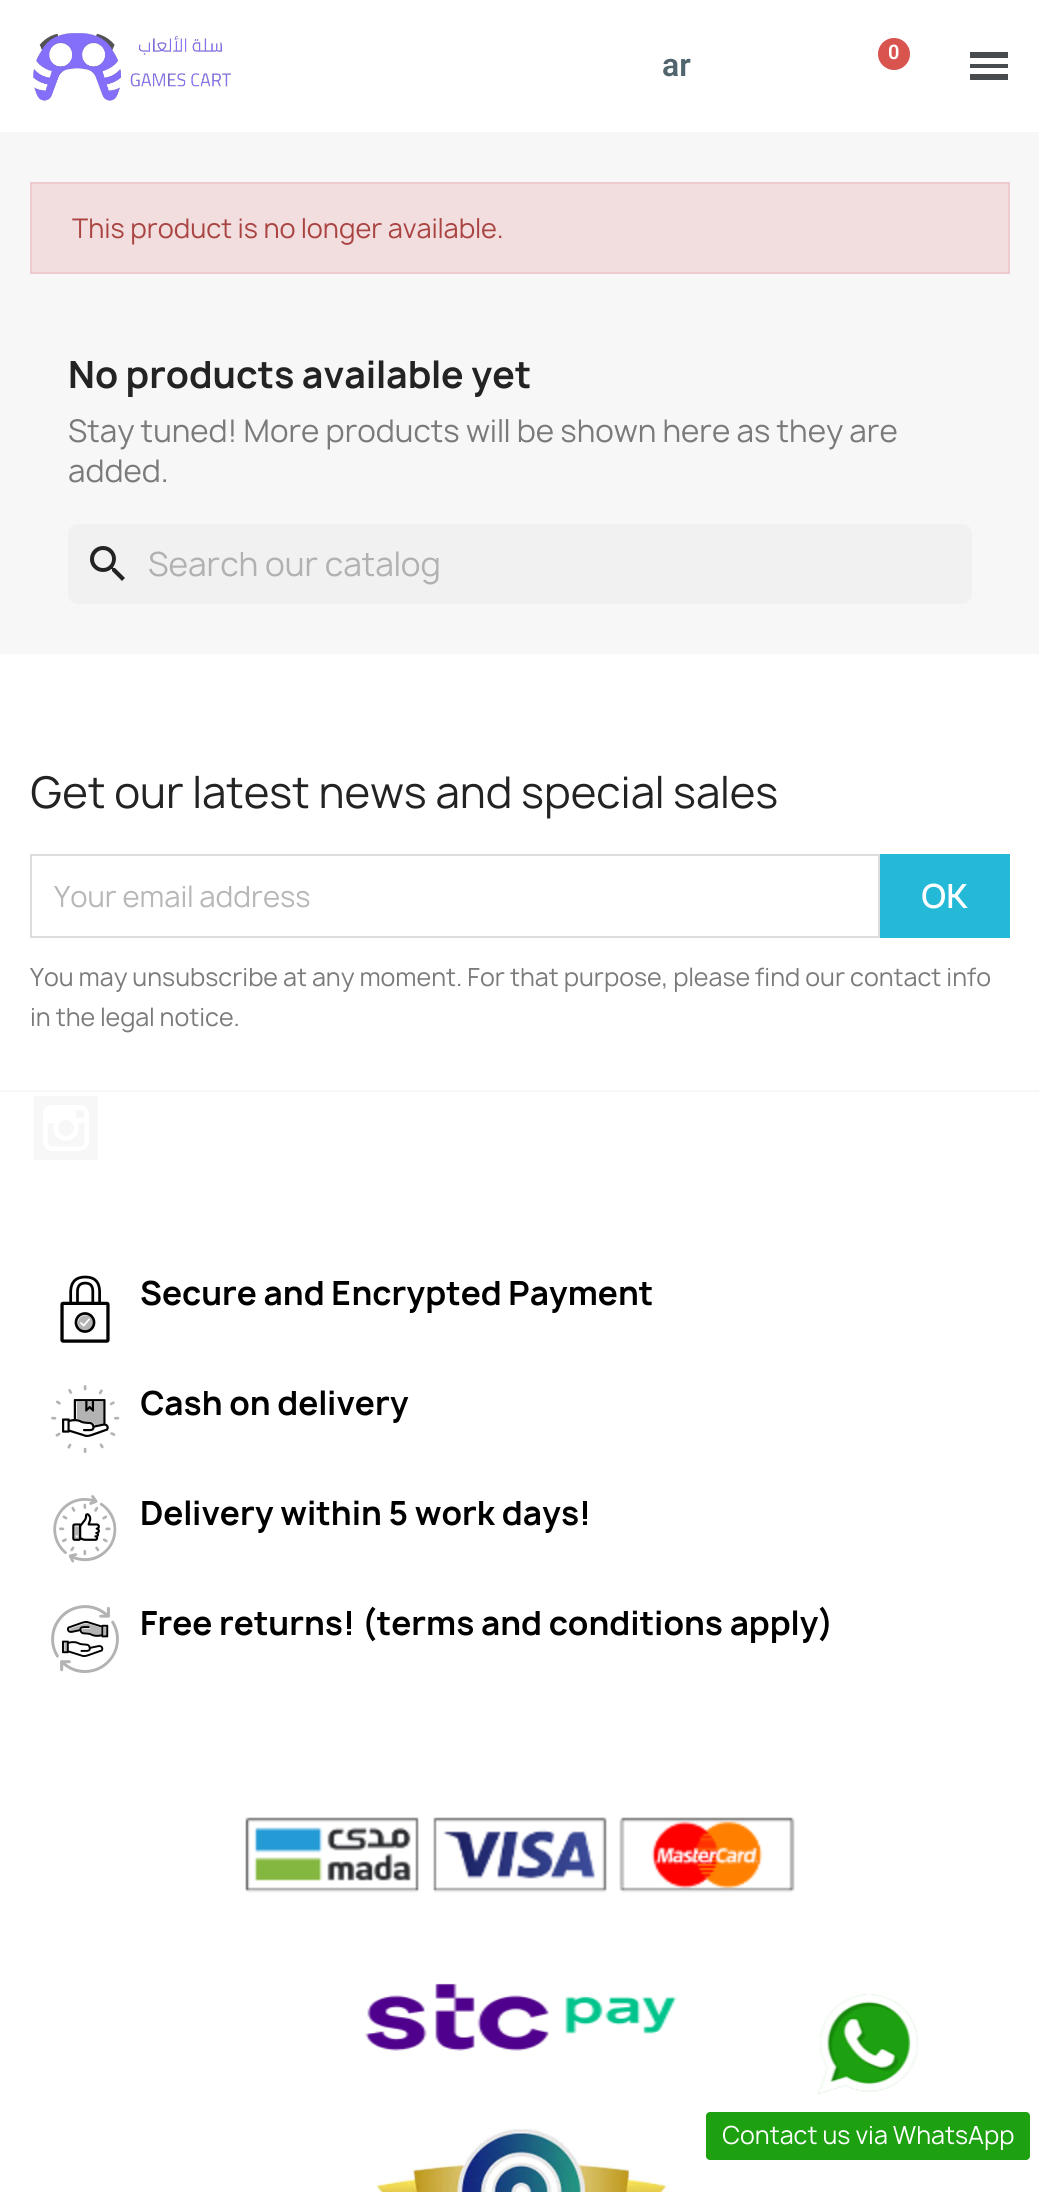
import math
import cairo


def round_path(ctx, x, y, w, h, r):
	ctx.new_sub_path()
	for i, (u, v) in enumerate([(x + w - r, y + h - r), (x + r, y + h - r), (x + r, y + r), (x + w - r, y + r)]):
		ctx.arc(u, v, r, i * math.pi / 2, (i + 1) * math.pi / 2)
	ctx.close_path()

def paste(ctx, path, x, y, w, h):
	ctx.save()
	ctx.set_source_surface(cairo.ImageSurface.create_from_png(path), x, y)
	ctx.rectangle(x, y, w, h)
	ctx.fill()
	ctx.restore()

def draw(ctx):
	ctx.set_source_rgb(1, 1, 1)
	ctx.paint()
	paste(ctx, 'media/1.png', 32, 33, 199, 69)
	ctx.select_font_face('Roboto SemiBold')
	ctx.set_font_size(32)
	ctx.set_source_rgb(0.314, 0.396, 0.431)
	ctx.move_to(662, 76)
	ctx.show_text('ar')
	ctx.set_source_rgb(0.851, 0.325, 0.31)
	ctx.new_path()
	ctx.arc(894, 54, 16, 0, 2 * math.pi)
	ctx.fill()
	ctx.set_font_size(20)
	ctx.set_source_rgb(1, 1, 1)
	ctx.move_to(888, 59)
	ctx.show_text('0')
	ctx.set_source_rgb(0.286, 0.298, 0.31)
	ctx.rectangle(970, 64, 38, 4)
	ctx.rectangle(970, 52, 38, 6)
	ctx.rectangle(970, 74, 38, 6)
	ctx.fill()
	ctx.set_source_rgb(0.965, 0.965, 0.965)
	ctx.rectangle(0, 132, 1039, 522)
	ctx.fill()
	ctx.set_source_rgb(0.949, 0.871, 0.871)
	ctx.rectangle(31, 183, 978, 90)
	ctx.fill_preserve()
	ctx.set_source_rgb(0.922, 0.8, 0.8)
	ctx.stroke()
	ctx.select_font_face('Manrope')
	ctx.set_font_size(26)
	ctx.set_source_rgb(0.663, 0.267, 0.259)
	ctx.move_to(72, 238)
	ctx.show_text('This product is no longer available.')
	ctx.select_font_face('Manrope', cairo.FONT_SLANT_NORMAL, cairo.FONT_WEIGHT_BOLD)
	ctx.set_font_size(36)
	ctx.set_source_rgb(0.137, 0.137, 0.137)
	ctx.move_to(68, 388)
	ctx.show_text('No products available yet')
	ctx.select_font_face('Manrope')
	ctx.set_font_size(30)
	ctx.set_source_rgb(0.478, 0.478, 0.478)
	ctx.move_to(68, 442)
	ctx.show_text('Stay tuned! More products will be shown here as they are')
	ctx.move_to(68, 482)
	ctx.show_text('added.')
	ctx.set_source_rgb(0.945, 0.945, 0.945)
	round_path(ctx, 68, 524, 904, 80, 10)
	ctx.fill()
	paste(ctx, 'media/2.png', 90, 546, 35, 35)
	ctx.set_font_size(32)
	ctx.set_source_rgb(0.694, 0.694, 0.694)
	ctx.move_to(148, 576)
	ctx.show_text('Search our catalog')
	ctx.set_source_rgb(0.965, 0.965, 0.965)
	ctx.rectangle(0, 1090, 1039, 2)
	ctx.fill()
	ctx.set_font_size(42)
	ctx.set_source_rgb(0.137, 0.137, 0.137)
	ctx.move_to(30, 808)
	ctx.show_text('Get our latest news and special sales')
	ctx.rectangle(31, 855, 848, 82)
	ctx.set_source_rgb(0.867, 0.867, 0.867)
	ctx.stroke()
	ctx.set_font_size(28)
	ctx.set_source_rgb(0.718, 0.718, 0.718)
	ctx.move_to(54, 907)
	ctx.show_text('Your email address')
	ctx.set_source_rgb(0.141, 0.725, 0.843)
	ctx.rectangle(880, 854, 130, 84)
	ctx.fill()
	ctx.select_font_face('Manrope SemiBold')
	ctx.set_font_size(32)
	ctx.set_source_rgb(1, 1, 1)
	ctx.move_to(921, 908)
	ctx.show_text('OK')
	ctx.select_font_face('Manrope')
	ctx.set_font_size(24)
	ctx.set_source_rgb(0.478, 0.478, 0.478)
	ctx.move_to(30, 986)
	ctx.show_text('You may unsubscribe at any moment. For that purpose, please find our contact info')
	ctx.move_to(30, 1026)
	ctx.show_text('in the legal notice.')
	ctx.set_source_rgb(0.965, 0.965, 0.965)
	ctx.rectangle(34, 1096, 64, 64)
	ctx.fill()
	paste(ctx, 'media/3.png', 43, 1105, 46, 46)
	paste(ctx, 'media/4.png', 60, 1275, 50, 68)
	ctx.select_font_face('Manrope', cairo.FONT_SLANT_NORMAL, cairo.FONT_WEIGHT_BOLD)
	ctx.set_font_size(32)
	ctx.set_source_rgb(0, 0, 0)
	ctx.move_to(140, 1305)
	ctx.show_text('Secure and Encrypted Payment')
	paste(ctx, 'media/5.png', 51, 1385, 69, 68)
	ctx.move_to(140, 1415)
	ctx.show_text('Cash on delivery')
	paste(ctx, 'media/6.png', 53, 1495, 64, 68)
	ctx.move_to(140, 1525)
	ctx.show_text('Delivery within 5 work days!')
	paste(ctx, 'media/7.png', 51, 1605, 68, 68)
	ctx.move_to(140, 1635)
	ctx.show_text('Free returns! (terms and conditions apply)')
	paste(ctx, 'media/8.png', 245, 1817, 550, 76)
	paste(ctx, 'media/9.png', 365, 1983, 312, 68)
	paste(ctx, 'media/10.png', 376, 2128, 294, 64)
	paste(ctx, 'media/11.png', 817, 1994, 101, 100)
	ctx.set_source_rgb(0.114, 0.631, 0.063)
	round_path(ctx, 706, 2112, 324, 48, 4)
	ctx.fill()
	ctx.select_font_face('Manrope')
	ctx.set_font_size(24)
	ctx.set_source_rgb(1, 1, 1)
	ctx.move_to(722, 2144)
	ctx.show_text('Contact us via WhatsApp')


surface = cairo.ImageSurface(cairo.FORMAT_RGB24, 1039, 2192)
ctx = cairo.Context(surface)
options = cairo.FontOptions()
options.set_hint_metrics(cairo.HINT_METRICS_OFF)
options.set_hint_style(cairo.HINT_STYLE_NONE)
ctx.set_font_options(options)
ctx.set_miter_limit(4)
draw(ctx)
surface.write_to_png('image.png')
